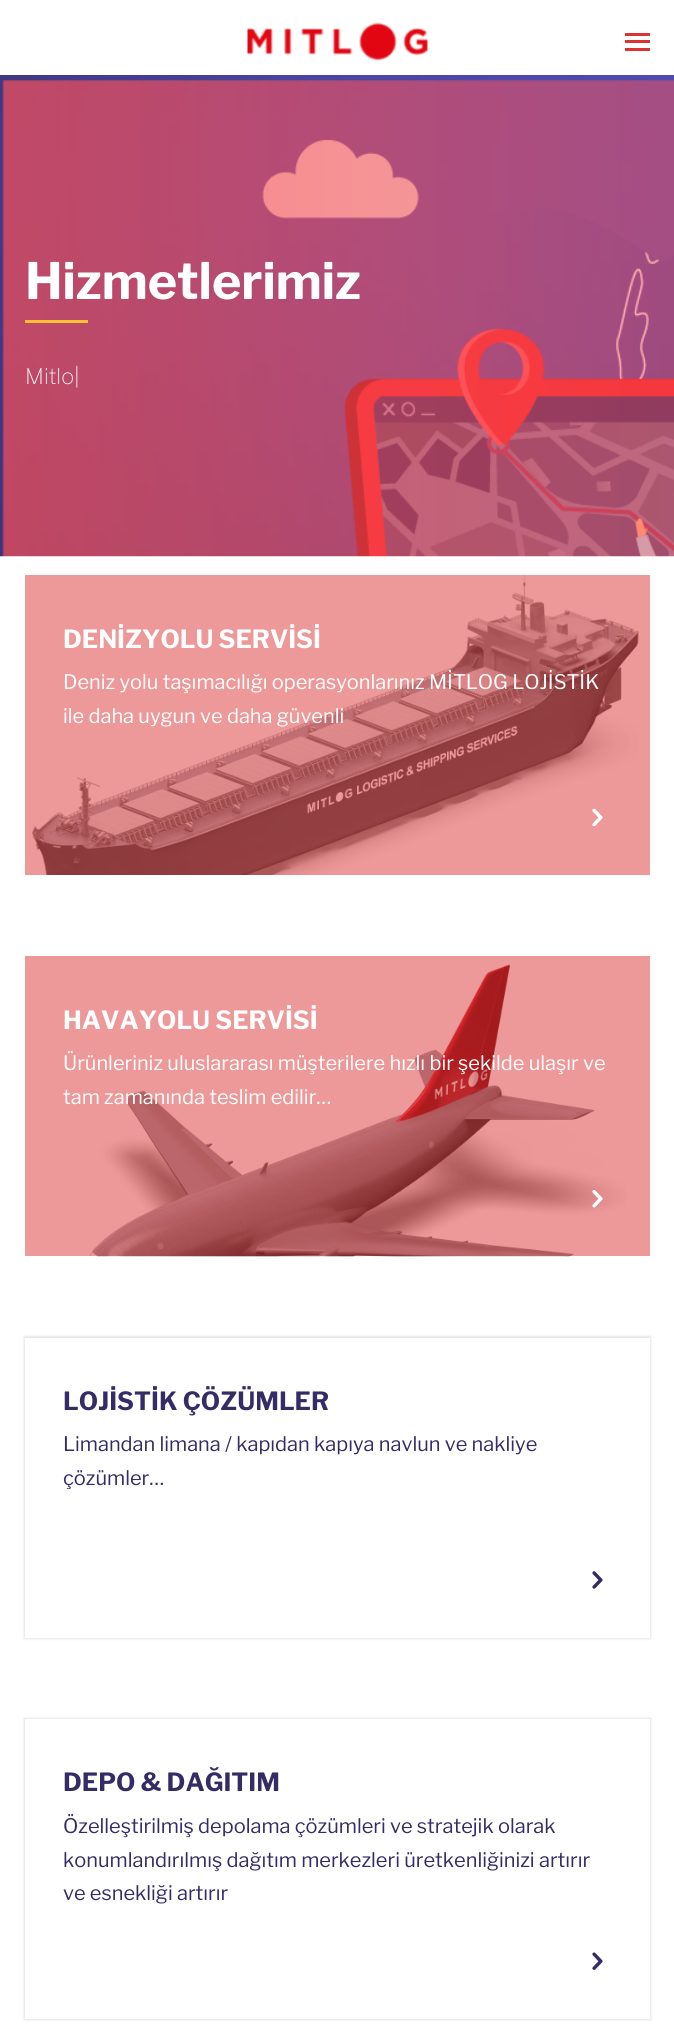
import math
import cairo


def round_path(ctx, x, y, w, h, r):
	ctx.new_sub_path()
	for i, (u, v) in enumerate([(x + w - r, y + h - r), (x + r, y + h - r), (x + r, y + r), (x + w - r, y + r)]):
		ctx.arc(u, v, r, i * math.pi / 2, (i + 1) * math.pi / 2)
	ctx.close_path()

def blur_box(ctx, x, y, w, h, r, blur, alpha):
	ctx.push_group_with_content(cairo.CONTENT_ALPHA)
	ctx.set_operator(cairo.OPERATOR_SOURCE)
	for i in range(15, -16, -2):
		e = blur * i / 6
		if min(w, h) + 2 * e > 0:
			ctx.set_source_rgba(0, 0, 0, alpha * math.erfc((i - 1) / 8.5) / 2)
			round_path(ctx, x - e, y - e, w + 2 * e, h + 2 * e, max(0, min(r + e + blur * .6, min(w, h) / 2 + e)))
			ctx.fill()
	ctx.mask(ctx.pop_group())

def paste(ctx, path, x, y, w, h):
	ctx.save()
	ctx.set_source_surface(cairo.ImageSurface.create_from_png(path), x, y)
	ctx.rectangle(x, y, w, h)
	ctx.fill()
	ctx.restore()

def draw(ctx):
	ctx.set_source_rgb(1, 1, 1)
	ctx.paint()
	ctx.set_source_rgb(0.933, 0.6, 0.6)
	ctx.rectangle(25, 956, 625, 300)
	ctx.fill()
	ctx.rectangle(25, 575, 625, 300)
	ctx.fill()
	paste(ctx, 'media/1.png', 247, 22, 181, 39)
	ctx.set_source_rgb(0.867, 0.2, 0.2)
	ctx.rectangle(625, 33, 25, 3)
	ctx.rectangle(625, 40, 25, 3)
	ctx.rectangle(625, 48, 25, 3)
	ctx.fill()
	paste(ctx, 'media/2.png', 0, 75, 674, 482)
	ctx.select_font_face('Libre Franklin', cairo.FONT_SLANT_NORMAL, cairo.FONT_WEIGHT_BOLD)
	ctx.set_font_size(50)
	ctx.set_source_rgb(1, 1, 1)
	ctx.move_to(25, 299)
	ctx.show_text('Hizmetlerimiz')
	ctx.set_source_rgb(0.98, 0.753, 0.2)
	ctx.rectangle(25, 320, 63, 3)
	ctx.fill()
	ctx.select_font_face('Libre Franklin Thin')
	ctx.set_font_size(21.5)
	ctx.set_source_rgb(1, 1, 1)
	ctx.move_to(25, 384)
	ctx.show_text('Mitlo|')
	paste(ctx, 'media/3.png', 32, 575, 607, 300)
	ctx.select_font_face('Libre Franklin', cairo.FONT_SLANT_NORMAL, cairo.FONT_WEIGHT_BOLD)
	ctx.set_font_size(25)
	ctx.move_to(63, 648)
	ctx.show_text('DENİZYOLU SERVİSİ')
	ctx.select_font_face('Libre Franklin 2 Thin')
	ctx.set_font_size(20)
	ctx.move_to(63, 689)
	ctx.show_text('Deniz yolu taşımacılığı operasyonlarınız MİTLOG LOJİSTİK')
	ctx.move_to(63, 723)
	ctx.show_text('ile daha uygun ve daha güvenli')
	paste(ctx, 'media/4.png', 592, 808, 11, 19)
	paste(ctx, 'media/5.png', 89, 964, 537, 293)
	ctx.select_font_face('Libre Franklin', cairo.FONT_SLANT_NORMAL, cairo.FONT_WEIGHT_BOLD)
	ctx.set_font_size(25)
	ctx.move_to(63, 1029)
	ctx.show_text('HAVAYOLU SERVİSİ')
	ctx.select_font_face('Libre Franklin 2 Thin')
	ctx.set_font_size(20)
	ctx.move_to(63, 1070)
	ctx.show_text('Ürünleriniz uluslararası müşterilere hızlı bir şekilde ulaşır ve')
	ctx.move_to(63, 1104)
	ctx.show_text('tam zamanında teslim edilir…')
	paste(ctx, 'media/6.png', 592, 1190, 11, 18)
	ctx.set_source_rgb(0.8, 0.8, 0.8)
	blur_box(ctx, 24, 1336, 627, 303, 0, 1, 0.5)
	ctx.set_source_rgb(1, 1, 1)
	ctx.rectangle(25, 1338, 625, 300)
	ctx.fill()
	ctx.select_font_face('Libre Franklin', cairo.FONT_SLANT_NORMAL, cairo.FONT_WEIGHT_BOLD)
	ctx.set_font_size(25)
	ctx.set_source_rgb(0.208, 0.173, 0.4)
	ctx.move_to(63, 1410)
	ctx.show_text('LOJİSTİK ÇÖZÜMLER')
	ctx.select_font_face('Libre Franklin 2 Thin')
	ctx.set_font_size(20)
	ctx.move_to(63, 1451)
	ctx.show_text('Limandan limana / kapıdan kapıya navlun ve nakliye')
	ctx.move_to(63, 1485)
	ctx.show_text('çözümler…')
	paste(ctx, 'media/7.png', 592, 1571, 11, 18)
	ctx.set_source_rgb(0.8, 0.8, 0.8)
	blur_box(ctx, 24, 1718, 627, 302, 0, 1, 0.5)
	ctx.set_source_rgb(1, 1, 1)
	ctx.rectangle(25, 1719, 625, 300)
	ctx.fill()
	ctx.select_font_face('Libre Franklin', cairo.FONT_SLANT_NORMAL, cairo.FONT_WEIGHT_BOLD)
	ctx.set_font_size(25)
	ctx.set_source_rgb(0.208, 0.173, 0.4)
	ctx.move_to(63, 1791)
	ctx.show_text('DEPO & DAĞITIM')
	ctx.select_font_face('Libre Franklin 2 Thin')
	ctx.set_font_size(20)
	for x, y, s in [
		(63, 1833, 'Özelleştirilmiş depolama çözümleri ve stratejik olarak'),
		(63, 1867, 'konumlandırılmış dağıtım merkezleri üretkenliğinizi artırır'),
		(63, 1900, 've esnekliği artırır'),
	]:
		ctx.move_to(x, y)
		ctx.show_text(s)
	paste(ctx, 'media/8.png', 592, 1952, 11, 18)


surface = cairo.ImageSurface(cairo.FORMAT_RGB24, 674, 2033)
ctx = cairo.Context(surface)
options = cairo.FontOptions()
options.set_hint_metrics(cairo.HINT_METRICS_OFF)
options.set_hint_style(cairo.HINT_STYLE_NONE)
ctx.set_font_options(options)
ctx.set_miter_limit(4)
draw(ctx)
surface.write_to_png('image.png')
